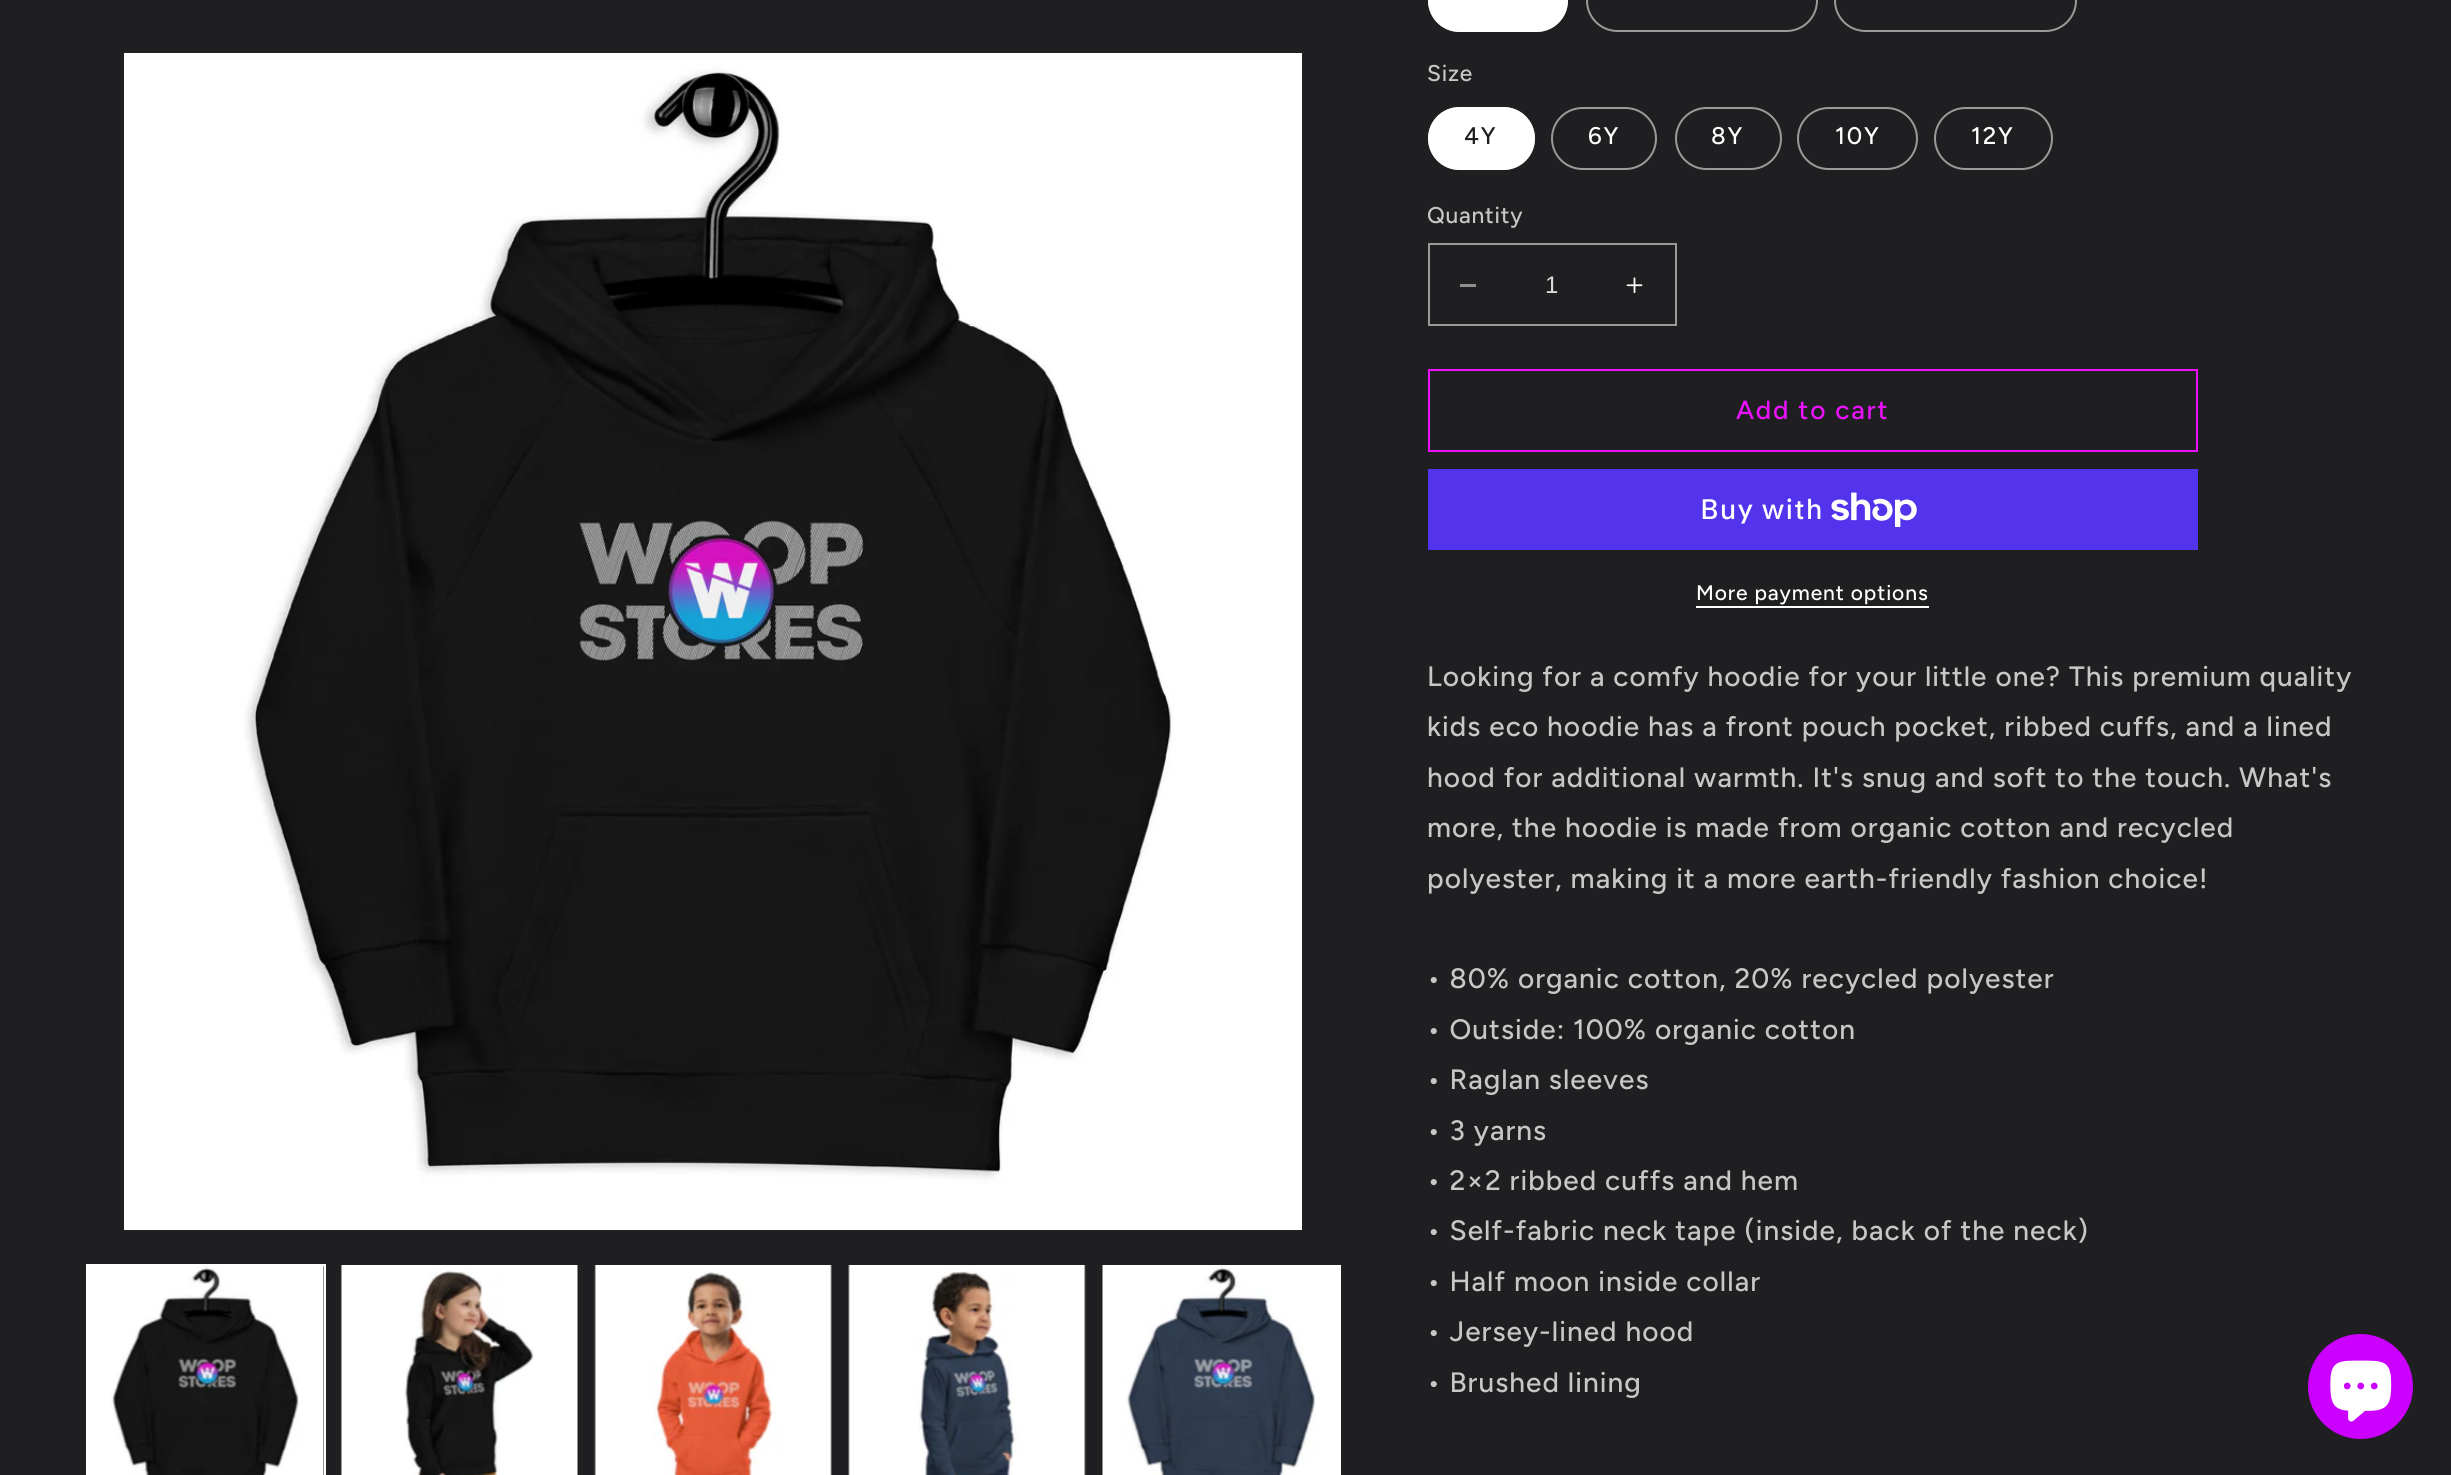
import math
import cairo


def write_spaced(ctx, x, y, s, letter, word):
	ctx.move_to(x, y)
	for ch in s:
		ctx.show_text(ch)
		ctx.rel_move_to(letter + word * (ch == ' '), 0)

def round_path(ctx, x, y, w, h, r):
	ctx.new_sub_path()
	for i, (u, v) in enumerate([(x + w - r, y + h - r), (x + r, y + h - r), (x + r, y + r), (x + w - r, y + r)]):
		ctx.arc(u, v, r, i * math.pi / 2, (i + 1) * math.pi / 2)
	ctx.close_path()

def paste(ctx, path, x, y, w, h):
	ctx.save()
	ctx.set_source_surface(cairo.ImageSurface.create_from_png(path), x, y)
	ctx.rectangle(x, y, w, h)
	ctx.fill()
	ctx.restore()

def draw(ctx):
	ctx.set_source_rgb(0.122, 0.122, 0.129)
	ctx.paint()
	paste(ctx, 'media/1.png', 124, 53, 1178, 1177)
	ctx.rectangle(87, 1265, 238, 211)
	ctx.set_source_rgb(1, 1, 1)
	ctx.stroke()
	paste(ctx, 'media/2.png', 88, 1265, 236, 210)
	paste(ctx, 'media/3.png', 340, 1265, 238, 210)
	paste(ctx, 'media/4.png', 594, 1265, 238, 210)
	paste(ctx, 'media/5.png', 848, 1265, 238, 210)
	paste(ctx, 'media/6.png', 1102, 1265, 239, 210)
	round_path(ctx, 1428, -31, 140, 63, 31.5)
	ctx.fill()
	round_path(ctx, 1429, -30, 138, 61, 30.5)
	ctx.set_source_rgba(1, 1, 1, 0.55)
	ctx.stroke()
	round_path(ctx, 1587, -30, 230, 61, 30.5)
	ctx.set_source_rgb(0.604, 0.604, 0.608)
	ctx.stroke()
	round_path(ctx, 1835, -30, 241, 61, 30.5)
	ctx.stroke()
	ctx.select_font_face('Figtree Medium')
	ctx.set_font_size(22.75)
	ctx.set_source_rgb(0.78, 0.78, 0.784)
	write_spaced(ctx, 1427, 81, 'Size', 0.75, 0)
	ctx.set_source_rgb(1, 1, 1)
	round_path(ctx, 1428, 107, 107, 63, 31.5)
	ctx.fill()
	round_path(ctx, 1429, 108, 105, 61, 30.5)
	ctx.set_source_rgba(1, 1, 1, 0.55)
	ctx.stroke()
	ctx.set_font_size(24)
	ctx.set_source_rgb(0.122, 0.122, 0.129)
	write_spaced(ctx, 1464, 144, '4Y', 1.75, 0)
	round_path(ctx, 1552, 108, 104, 61, 30.5)
	ctx.set_source_rgb(0.604, 0.604, 0.608)
	ctx.stroke()
	ctx.set_source_rgb(1, 1, 1)
	write_spaced(ctx, 1588, 144, '6Y', 1.75, 0)
	round_path(ctx, 1676, 108, 105, 61, 30.5)
	ctx.set_source_rgb(0.604, 0.604, 0.608)
	ctx.stroke()
	ctx.set_source_rgb(1, 1, 1)
	write_spaced(ctx, 1711, 144, '8Y', 1.75, 0)
	round_path(ctx, 1798, 108, 119, 61, 30.5)
	ctx.set_source_rgb(0.604, 0.604, 0.608)
	ctx.stroke()
	ctx.set_source_rgb(1, 1, 1)
	write_spaced(ctx, 1835, 144, '10Y', 1.75, 0)
	round_path(ctx, 1935, 108, 117, 61, 30.5)
	ctx.set_source_rgb(0.604, 0.604, 0.608)
	ctx.stroke()
	ctx.set_source_rgb(1, 1, 1)
	write_spaced(ctx, 1971, 144, '12Y', 1.75, 0)
	ctx.set_font_size(22.75)
	ctx.set_source_rgb(0.78, 0.78, 0.784)
	write_spaced(ctx, 1427, 223, 'Quantity', 0.75, 0)
	ctx.set_source_rgb(0.561, 0.561, 0.565)
	ctx.rectangle(1460, 284, 16, 3)
	ctx.fill()
	paste(ctx, 'media/7.png', 1626, 277, 17, 17)
	ctx.rectangle(1429, 244, 247, 81)
	ctx.set_source_rgb(0.604, 0.604, 0.608)
	ctx.stroke()
	ctx.select_font_face('Liberation Sans')
	ctx.set_font_size(24)
	ctx.set_source_rgb(0.867, 0.867, 0.871)
	ctx.move_to(1545, 293)
	ctx.show_text('1')
	ctx.rectangle(1429, 370, 768, 81)
	ctx.set_source_rgb(0.929, 0.071, 1)
	ctx.stroke()
	ctx.select_font_face('Figtree Medium')
	ctx.set_font_size(26.25)
	write_spaced(ctx, 1736, 419, 'Add to cart', 1.75, 0)
	ctx.set_source_rgb(0.329, 0.2, 0.922)
	ctx.rectangle(1428, 469, 770, 81)
	ctx.fill()
	ctx.select_font_face('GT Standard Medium')
	ctx.set_font_size(28)
	ctx.set_source_rgb(1, 1, 1)
	write_spaced(ctx, 1700, 519, 'Buy with', 1.05, 0)
	paste(ctx, 'media/8.png', 1831, 492, 86, 35)
	ctx.select_font_face('Figtree Medium')
	ctx.set_font_size(21)
	write_spaced(ctx, 1696, 600, 'More payment options', 0.9, 0)
	ctx.rectangle(1696, 606, 233, 2)
	ctx.fill()
	ctx.set_font_size(28)
	ctx.set_source_rgb(0.78, 0.78, 0.784)
	for x, y, s in [
		(1427, 686, 'Looking for a comfy hoodie for your little one? This premium quality'),
		(1427, 736, 'kids eco hoodie has a front pouch pocket, ribbed cuffs, and a lined'),
		(1427, 787, 'hood for additional warmth. It\'s snug and soft to the touch. What\'s'),
		(1427, 837, 'more, the hoodie is made from organic cotton and recycled'),
		(1427, 888, 'polyester, making it a more earth-friendly fashion choice!'),
		(1427, 988, '• 80% organic cotton, 20% recycled polyester'),
		(1427, 1039, '• Outside: 100% organic cotton'),
		(1427, 1089, '• Raglan sleeves'),
		(1427, 1140, '• 3 yarns'),
		(1427, 1190, '• 2×2 ribbed cuffs and hem'),
		(1427, 1240, '• Self-fabric neck tape (inside, back of the neck)'),
		(1427, 1291, '• Half moon inside collar'),
		(1427, 1341, '• Jersey-lined hood'),
		(1427, 1392, '• Brushed lining'),
	]:
		write_spaced(ctx, x, y, s, 1.05, 0)
	ctx.set_source_rgb(0.796, 0, 1)
	ctx.new_path()
	ctx.arc(2360.5, 1386.5, 52.5, 0, 2 * math.pi)
	ctx.fill()
	paste(ctx, 'media/9.png', 2330, 1360, 62, 62)


surface = cairo.ImageSurface(cairo.FORMAT_RGB24, 2451, 1475)
ctx = cairo.Context(surface)
options = cairo.FontOptions()
options.set_hint_metrics(cairo.HINT_METRICS_OFF)
options.set_hint_style(cairo.HINT_STYLE_NONE)
ctx.set_font_options(options)
ctx.set_miter_limit(4)
draw(ctx)
surface.write_to_png('image.png')
